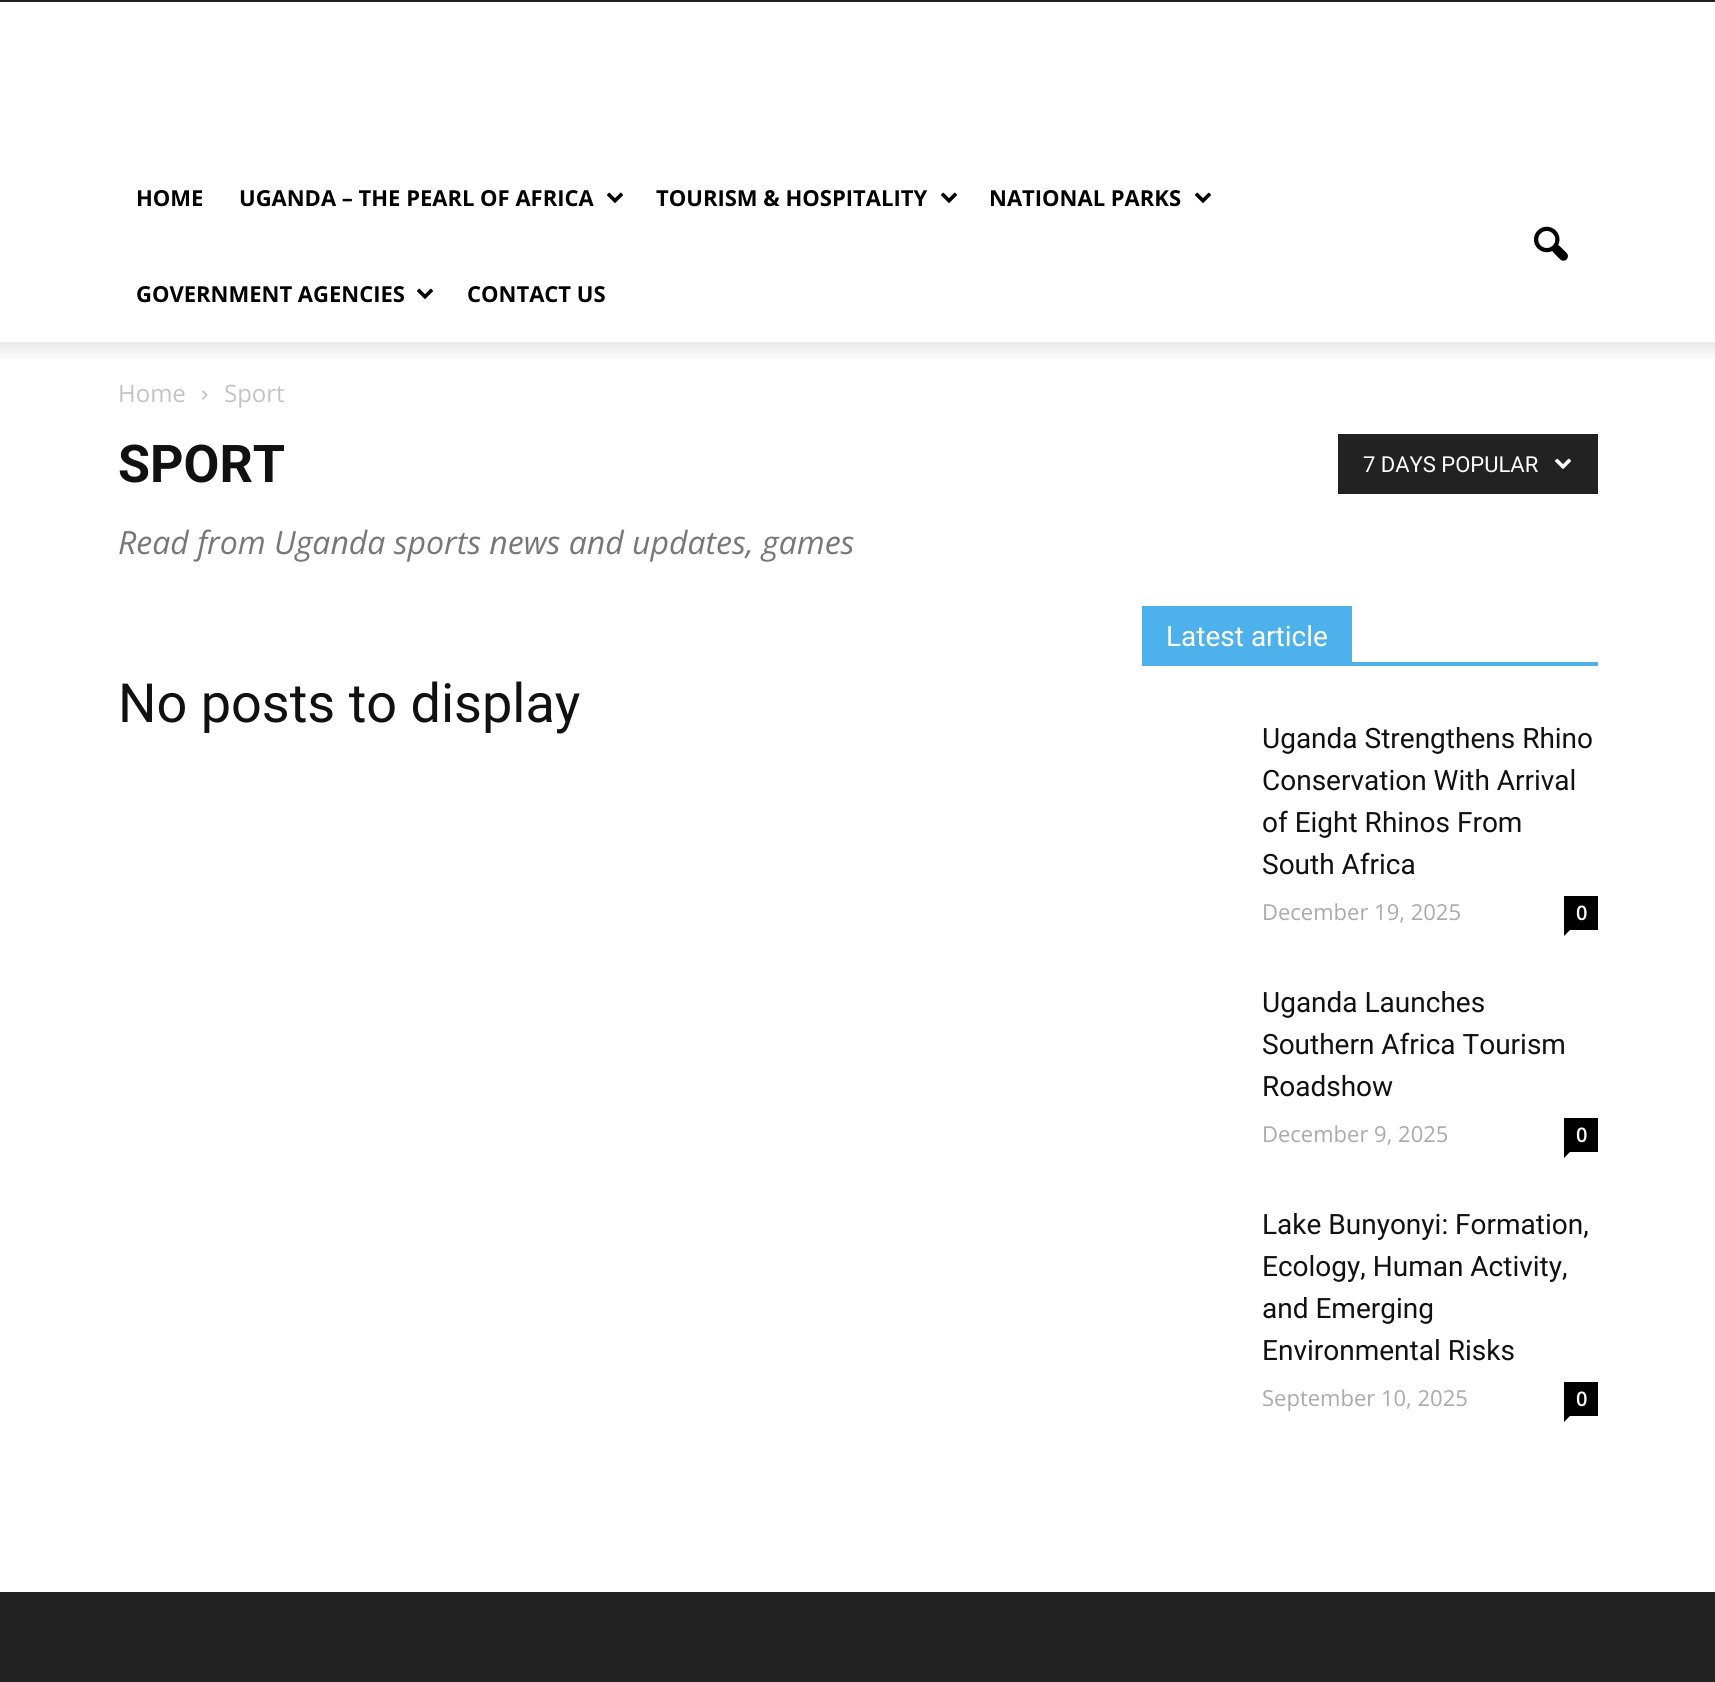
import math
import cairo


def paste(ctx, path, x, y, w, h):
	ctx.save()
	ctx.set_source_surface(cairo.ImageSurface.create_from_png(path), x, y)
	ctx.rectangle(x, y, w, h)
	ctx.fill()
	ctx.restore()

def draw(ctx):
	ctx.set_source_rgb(1, 1, 1)
	ctx.paint()
	ctx.set_source_rgb(0.133, 0.133, 0.133)
	ctx.rectangle(0, 0, 1715, 2)
	ctx.fill()
	ctx.select_font_face('Open Sans', cairo.FONT_SLANT_NORMAL, cairo.FONT_WEIGHT_BOLD)
	ctx.set_font_size(22)
	ctx.set_source_rgb(0, 0, 0)
	ctx.move_to(136, 206)
	ctx.show_text('HOME')
	ctx.move_to(239, 206)
	ctx.show_text('UGANDA – THE PEARL OF AFRICA')
	paste(ctx, 'media/1.png', 607, 192, 16, 11)
	ctx.move_to(656, 206)
	ctx.show_text('TOURISM & HOSPITALITY')
	paste(ctx, 'media/1.png', 941, 192, 16, 11)
	ctx.move_to(989, 206)
	ctx.show_text('NATIONAL PARKS')
	paste(ctx, 'media/1.png', 1195, 192, 16, 11)
	ctx.move_to(136, 302)
	ctx.show_text('GOVERNMENT AGENCIES')
	paste(ctx, 'media/1.png', 417, 288, 16, 11)
	ctx.move_to(467, 302)
	ctx.show_text('CONTACT US')
	paste(ctx, 'media/2.png', 1534, 226, 34, 35)
	paste(ctx, 'media/3.png', 0, 342, 1715, 17)
	ctx.select_font_face('Open Sans')
	ctx.set_font_size(24)
	ctx.set_source_rgb(0.765, 0.765, 0.765)
	ctx.move_to(118, 402)
	ctx.show_text('Home')
	paste(ctx, 'media/4.png', 202, 390, 6, 10)
	ctx.move_to(224, 402)
	ctx.show_text('Sport')
	ctx.select_font_face('Roboto', cairo.FONT_SLANT_NORMAL, cairo.FONT_WEIGHT_BOLD)
	ctx.set_font_size(52)
	ctx.set_source_rgb(0.067, 0.067, 0.067)
	ctx.move_to(118, 482)
	ctx.show_text('SPORT')
	ctx.select_font_face('Open Sans', cairo.FONT_SLANT_ITALIC)
	ctx.set_font_size(32)
	ctx.set_source_rgb(0.467, 0.467, 0.467)
	ctx.move_to(118, 554)
	ctx.show_text('Read from Uganda sports news and updates, games')
	ctx.set_source_rgb(0.133, 0.133, 0.133)
	ctx.rectangle(1338, 434, 260, 60)
	ctx.fill()
	ctx.select_font_face('Roboto')
	ctx.set_font_size(22)
	ctx.set_source_rgb(1, 1, 1)
	ctx.move_to(1363, 472)
	ctx.show_text('7 DAYS POPULAR')
	paste(ctx, 'media/5.png', 1555, 458, 16, 11)
	ctx.set_font_size(54)
	ctx.set_source_rgb(0.067, 0.067, 0.067)
	ctx.move_to(118, 722)
	ctx.show_text('No posts to display')
	ctx.set_source_rgb(0.302, 0.698, 0.925)
	ctx.rectangle(1142, 662, 456, 4)
	ctx.fill()
	ctx.rectangle(1142, 606, 210, 56)
	ctx.fill()
	ctx.set_font_size(28)
	ctx.set_source_rgb(1, 1, 1)
	ctx.move_to(1166, 646)
	ctx.show_text('Latest article')
	ctx.set_source_rgb(0.067, 0.067, 0.067)
	for x, y, s in [
		(1262, 748, 'Uganda Strengthens Rhino'),
		(1262, 790, 'Conservation With Arrival'),
		(1262, 832, 'of Eight Rhinos From'),
		(1262, 874, 'South Africa'),
	]:
		ctx.move_to(x, y)
		ctx.show_text(s)
	ctx.select_font_face('Open Sans')
	ctx.set_font_size(22)
	ctx.set_source_rgb(0.667, 0.667, 0.667)
	ctx.move_to(1262, 920)
	ctx.show_text('December 19, 2025')
	ctx.set_source_rgb(0, 0, 0)
	ctx.rectangle(1564, 896, 34, 34)
	ctx.fill()
	ctx.select_font_face('Open Sans SemiBold')
	ctx.set_font_size(20)
	ctx.set_source_rgb(1, 1, 1)
	ctx.move_to(1576, 920)
	ctx.show_text('0')
	ctx.set_source_rgb(0, 0, 0)
	ctx.new_path()
	ctx.move_to(1564, 930)
	ctx.line_to(1570, 930)
	ctx.line_to(1564, 936)
	ctx.close_path()
	ctx.fill()
	ctx.select_font_face('Roboto')
	ctx.set_font_size(28)
	ctx.set_source_rgb(0.067, 0.067, 0.067)
	for x, y, s in [
		(1262, 1012, 'Uganda Launches'),
		(1262, 1054, 'Southern Africa Tourism'),
		(1262, 1096, 'Roadshow'),
	]:
		ctx.move_to(x, y)
		ctx.show_text(s)
	ctx.select_font_face('Open Sans')
	ctx.set_font_size(22)
	ctx.set_source_rgb(0.667, 0.667, 0.667)
	ctx.move_to(1262, 1142)
	ctx.show_text('December 9, 2025')
	ctx.set_source_rgb(0, 0, 0)
	ctx.rectangle(1564, 1118, 34, 34)
	ctx.fill()
	ctx.select_font_face('Open Sans SemiBold')
	ctx.set_font_size(20)
	ctx.set_source_rgb(1, 1, 1)
	ctx.move_to(1576, 1142)
	ctx.show_text('0')
	ctx.set_source_rgb(0, 0, 0)
	ctx.new_path()
	ctx.move_to(1564, 1152)
	ctx.line_to(1570, 1152)
	ctx.line_to(1564, 1158)
	ctx.close_path()
	ctx.fill()
	ctx.select_font_face('Roboto')
	ctx.set_font_size(28)
	ctx.set_source_rgb(0.067, 0.067, 0.067)
	for x, y, s in [
		(1262, 1234, 'Lake Bunyonyi: Formation,'),
		(1262, 1276, 'Ecology, Human Activity,'),
		(1262, 1318, 'and Emerging'),
		(1262, 1360, 'Environmental Risks'),
	]:
		ctx.move_to(x, y)
		ctx.show_text(s)
	ctx.select_font_face('Open Sans')
	ctx.set_font_size(22)
	ctx.set_source_rgb(0.667, 0.667, 0.667)
	ctx.move_to(1262, 1406)
	ctx.show_text('September 10, 2025')
	ctx.set_source_rgb(0, 0, 0)
	ctx.rectangle(1564, 1382, 34, 34)
	ctx.fill()
	ctx.select_font_face('Open Sans SemiBold')
	ctx.set_font_size(20)
	ctx.set_source_rgb(1, 1, 1)
	ctx.move_to(1576, 1406)
	ctx.show_text('0')
	ctx.set_source_rgb(0, 0, 0)
	ctx.new_path()
	ctx.move_to(1564, 1416)
	ctx.line_to(1570, 1416)
	ctx.line_to(1564, 1422)
	ctx.close_path()
	ctx.fill()
	ctx.set_source_rgb(0.133, 0.133, 0.133)
	ctx.rectangle(0, 1592, 1715, 90)
	ctx.fill()


surface = cairo.ImageSurface(cairo.FORMAT_RGB24, 1715, 1682)
ctx = cairo.Context(surface)
options = cairo.FontOptions()
options.set_hint_metrics(cairo.HINT_METRICS_OFF)
options.set_hint_style(cairo.HINT_STYLE_NONE)
ctx.set_font_options(options)
ctx.set_miter_limit(4)
draw(ctx)
surface.write_to_png('image.png')
